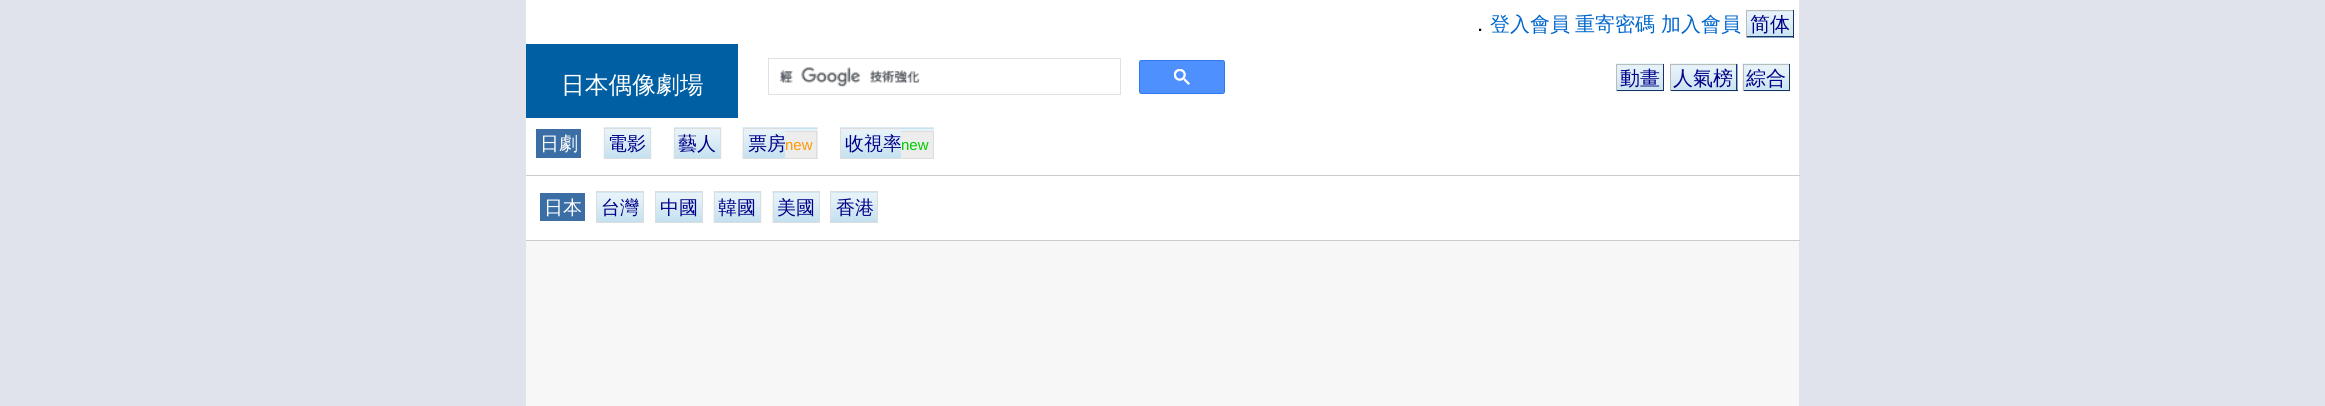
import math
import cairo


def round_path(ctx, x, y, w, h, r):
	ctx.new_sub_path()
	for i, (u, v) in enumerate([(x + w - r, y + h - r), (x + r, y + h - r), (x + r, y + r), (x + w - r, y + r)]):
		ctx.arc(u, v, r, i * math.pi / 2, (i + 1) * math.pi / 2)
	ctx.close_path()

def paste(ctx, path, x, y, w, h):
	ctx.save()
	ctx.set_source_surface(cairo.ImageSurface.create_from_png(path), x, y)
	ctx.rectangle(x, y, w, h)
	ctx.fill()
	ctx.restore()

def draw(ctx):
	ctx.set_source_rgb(0.882, 0.89, 0.925)
	ctx.paint()
	ctx.set_source_rgb(1, 1, 1)
	ctx.rectangle(526, 0, 1273, 240)
	ctx.fill()
	ctx.set_source_rgb(0.8, 0.8, 0.8)
	ctx.rectangle(526, 240, 1274, 1)
	ctx.fill()
	ctx.select_font_face('WenQuanYi Zen Hei Medium')
	ctx.set_font_size(20)
	ctx.set_source_rgb(0, 0.4, 0.8)
	for x, y, s in [
		(1490, 31, '登入會員'),
		(1575, 31, '重寄密碼'),
		(1661, 31, '加入會員'),
	]:
		ctx.move_to(x, y)
		ctx.show_text(s)
	ctx.set_source_rgb(0.227, 0.431, 0.647)
	ctx.rectangle(1747, 37, 46, 1)
	ctx.fill()
	paste(ctx, 'media/1.png', 1747, 11, 46, 27)
	ctx.set_source_rgb(0, 0, 0)
	ctx.move_to(1470, 31)
	ctx.show_text('．')
	ctx.set_source_rgb(0, 0, 0.533)
	ctx.move_to(1750, 31)
	ctx.show_text('简体')
	ctx.set_source_rgb(0.733, 0.733, 0.733)
	ctx.rectangle(1746, 10, 48, 1)
	ctx.fill()
	ctx.set_source_rgb(0.102, 0.196, 0.392)
	ctx.rectangle(1793, 10, 1, 28)
	ctx.rectangle(1746, 36, 48, 1)
	ctx.fill()
	ctx.set_source_rgb(0.733, 0.733, 0.733)
	ctx.rectangle(1746, 10, 1, 28)
	ctx.fill()
	ctx.set_source_rgb(0, 0.373, 0.639)
	ctx.rectangle(526, 44, 212, 74)
	ctx.fill()
	ctx.set_font_size(23.75)
	ctx.set_source_rgb(1, 1, 1)
	ctx.move_to(561, 93)
	ctx.show_text('日本偶像劇場')
	ctx.rectangle(768.5, 58.5, 352, 36)
	ctx.set_source_rgb(0.875, 0.882, 0.898)
	ctx.set_line_width(1)
	ctx.stroke()
	paste(ctx, 'media/2.png', 780, 67, 140, 20)
	ctx.set_source_rgb(0.302, 0.565, 0.996)
	round_path(ctx, 1139.5, 60.5, 85, 33, 2)
	ctx.fill_preserve()
	ctx.set_source_rgb(0.188, 0.475, 0.929)
	ctx.stroke()
	paste(ctx, 'media/3.png', 1174, 69, 16, 16)
	paste(ctx, 'media/4.png', 1616, 63, 48, 29)
	ctx.set_source_rgb(0.227, 0.431, 0.647)
	ctx.rectangle(1737, 65, 1, 25)
	ctx.fill()
	paste(ctx, 'media/5.png', 1670, 63, 68, 29)
	paste(ctx, 'media/6.png', 1742, 63, 48, 29)
	ctx.set_font_size(20)
	ctx.set_source_rgb(0, 0, 0.533)
	ctx.move_to(1620, 85)
	ctx.show_text('動畫')
	ctx.set_source_rgb(0.733, 0.733, 0.733)
	ctx.rectangle(1616, 64, 48, 1)
	ctx.fill()
	ctx.set_source_rgb(0.102, 0.196, 0.392)
	ctx.rectangle(1663, 64, 1, 27)
	ctx.rectangle(1616, 90, 48, 1)
	ctx.fill()
	ctx.set_source_rgb(0.733, 0.733, 0.733)
	ctx.rectangle(1616, 64, 1, 27)
	ctx.fill()
	ctx.set_source_rgb(0, 0, 0.533)
	ctx.move_to(1673, 85)
	ctx.show_text('人氣榜')
	ctx.set_source_rgb(0.733, 0.733, 0.733)
	ctx.rectangle(1670, 64, 68, 1)
	ctx.fill()
	ctx.set_source_rgb(0.102, 0.196, 0.392)
	ctx.rectangle(1736, 64, 1, 27)
	ctx.rectangle(1670, 90, 68, 1)
	ctx.fill()
	ctx.set_source_rgb(0.733, 0.733, 0.733)
	ctx.rectangle(1670, 64, 1, 27)
	ctx.fill()
	ctx.set_source_rgb(0, 0, 0.533)
	ctx.move_to(1746, 85)
	ctx.show_text('綜合')
	ctx.set_source_rgb(0.733, 0.733, 0.733)
	ctx.rectangle(1743, 64, 47, 1)
	ctx.fill()
	ctx.set_source_rgb(0.102, 0.196, 0.392)
	ctx.rectangle(1789, 64, 1, 27)
	ctx.rectangle(1743, 90, 47, 1)
	ctx.fill()
	ctx.set_source_rgb(0.733, 0.733, 0.733)
	ctx.rectangle(1743, 64, 1, 27)
	ctx.fill()
	ctx.set_source_rgb(0.227, 0.431, 0.647)
	ctx.rectangle(536, 129, 45, 29)
	ctx.fill()
	ctx.set_font_size(19)
	ctx.set_source_rgb(1, 1, 1)
	ctx.move_to(540, 150)
	ctx.show_text('日劇')
	paste(ctx, 'media/7.png', 603, 127, 49, 32)
	paste(ctx, 'media/7.png', 673, 127, 49, 32)
	paste(ctx, 'media/8.png', 742, 127, 76, 32)
	paste(ctx, 'media/9.png', 840, 127, 94, 31)
	ctx.rectangle(604.5, 128.5, 46, 30)
	ctx.set_source_rgb(0.867, 0.867, 0.867)
	ctx.stroke()
	ctx.set_source_rgb(0, 0, 0.533)
	ctx.move_to(608, 150)
	ctx.show_text('電影')
	ctx.rectangle(674.5, 128.5, 46, 30)
	ctx.set_source_rgb(0.867, 0.867, 0.867)
	ctx.stroke()
	ctx.set_source_rgb(0, 0, 0.533)
	ctx.move_to(678, 150)
	ctx.show_text('藝人')
	ctx.move_to(748, 150)
	ctx.show_text('票房')
	ctx.set_source_rgb(0.867, 0.867, 0.867)
	ctx.rectangle(743, 128, 42, 1)
	ctx.rectangle(743, 158, 42, 1)
	ctx.rectangle(743, 128, 1, 31)
	ctx.rectangle(785, 131, 33, 1)
	ctx.fill()
	ctx.set_source_rgb(0.929, 0.929, 0.929)
	ctx.rectangle(785, 132, 33, 26)
	ctx.fill()
	ctx.select_font_face('Liberation Sans')
	ctx.set_font_size(15)
	ctx.set_source_rgb(1, 0.6, 0)
	ctx.move_to(785, 150)
	ctx.show_text('new')
	ctx.set_source_rgb(0.867, 0.867, 0.867)
	ctx.rectangle(816, 131, 1, 28)
	ctx.fill()
	ctx.rectangle(785, 158, 33, 1)
	ctx.fill()
	ctx.select_font_face('WenQuanYi Zen Hei Medium')
	ctx.set_font_size(19)
	ctx.set_source_rgb(0, 0, 0.533)
	ctx.move_to(845, 150)
	ctx.show_text('收視率')
	ctx.set_source_rgb(0.867, 0.867, 0.867)
	ctx.rectangle(840, 128, 61, 1)
	ctx.rectangle(840, 158, 61, 1)
	ctx.rectangle(840, 128, 1, 31)
	ctx.rectangle(901, 131, 33, 1)
	ctx.fill()
	ctx.set_source_rgb(0.929, 0.929, 0.929)
	ctx.rectangle(901, 132, 32, 26)
	ctx.fill()
	ctx.select_font_face('Liberation Sans')
	ctx.set_font_size(15)
	ctx.set_source_rgb(0, 0.8, 0)
	ctx.move_to(901, 150)
	ctx.show_text('new')
	ctx.set_source_rgb(0.867, 0.867, 0.867)
	ctx.rectangle(933, 131, 1, 28)
	ctx.rectangle(901, 158, 33, 1)
	ctx.fill()
	ctx.set_source_rgb(0.8, 0.8, 0.8)
	ctx.rectangle(526, 175, 1274, 1)
	ctx.fill()
	ctx.set_source_rgb(0.227, 0.431, 0.647)
	ctx.rectangle(540, 193, 45, 28)
	ctx.fill()
	ctx.select_font_face('WenQuanYi Zen Hei Medium')
	ctx.set_font_size(19)
	ctx.set_source_rgb(1, 1, 1)
	ctx.move_to(544, 214)
	ctx.show_text('日本')
	paste(ctx, 'media/10.png', 597, 192, 46, 30)
	paste(ctx, 'media/10.png', 656, 192, 46, 30)
	paste(ctx, 'media/11.png', 713, 191, 49, 32)
	paste(ctx, 'media/12.png', 772, 191, 47, 32)
	paste(ctx, 'media/10.png', 831, 192, 46, 30)
	ctx.rectangle(596.5, 191.5, 47, 31)
	ctx.set_source_rgb(0.867, 0.867, 0.867)
	ctx.stroke()
	ctx.set_source_rgb(0, 0, 0.533)
	ctx.move_to(601, 214)
	ctx.show_text('台灣')
	ctx.rectangle(655.5, 191.5, 47, 31)
	ctx.set_source_rgb(0.867, 0.867, 0.867)
	ctx.stroke()
	ctx.set_source_rgb(0, 0, 0.533)
	ctx.move_to(660, 214)
	ctx.show_text('中國')
	ctx.rectangle(714.5, 191.5, 46, 31)
	ctx.set_source_rgb(0.867, 0.867, 0.867)
	ctx.stroke()
	ctx.set_source_rgb(0, 0, 0.533)
	ctx.move_to(718, 214)
	ctx.show_text('韓國')
	ctx.rectangle(773.5, 191.5, 46, 31)
	ctx.set_source_rgb(0.867, 0.867, 0.867)
	ctx.stroke()
	ctx.set_source_rgb(0, 0, 0.533)
	ctx.move_to(777, 214)
	ctx.show_text('美國')
	ctx.rectangle(830.5, 191.5, 47, 31)
	ctx.set_source_rgb(0.867, 0.867, 0.867)
	ctx.stroke()
	ctx.set_source_rgb(0, 0, 0.533)
	ctx.move_to(836, 214)
	ctx.show_text('香港')
	ctx.set_source_rgb(0.965, 0.965, 0.965)
	ctx.rectangle(526, 241, 1273, 165)
	ctx.fill()


surface = cairo.ImageSurface(cairo.FORMAT_RGB24, 2325, 406)
ctx = cairo.Context(surface)
options = cairo.FontOptions()
options.set_hint_metrics(cairo.HINT_METRICS_OFF)
options.set_hint_style(cairo.HINT_STYLE_NONE)
ctx.set_font_options(options)
ctx.set_miter_limit(4)
draw(ctx)
surface.write_to_png('image.png')
